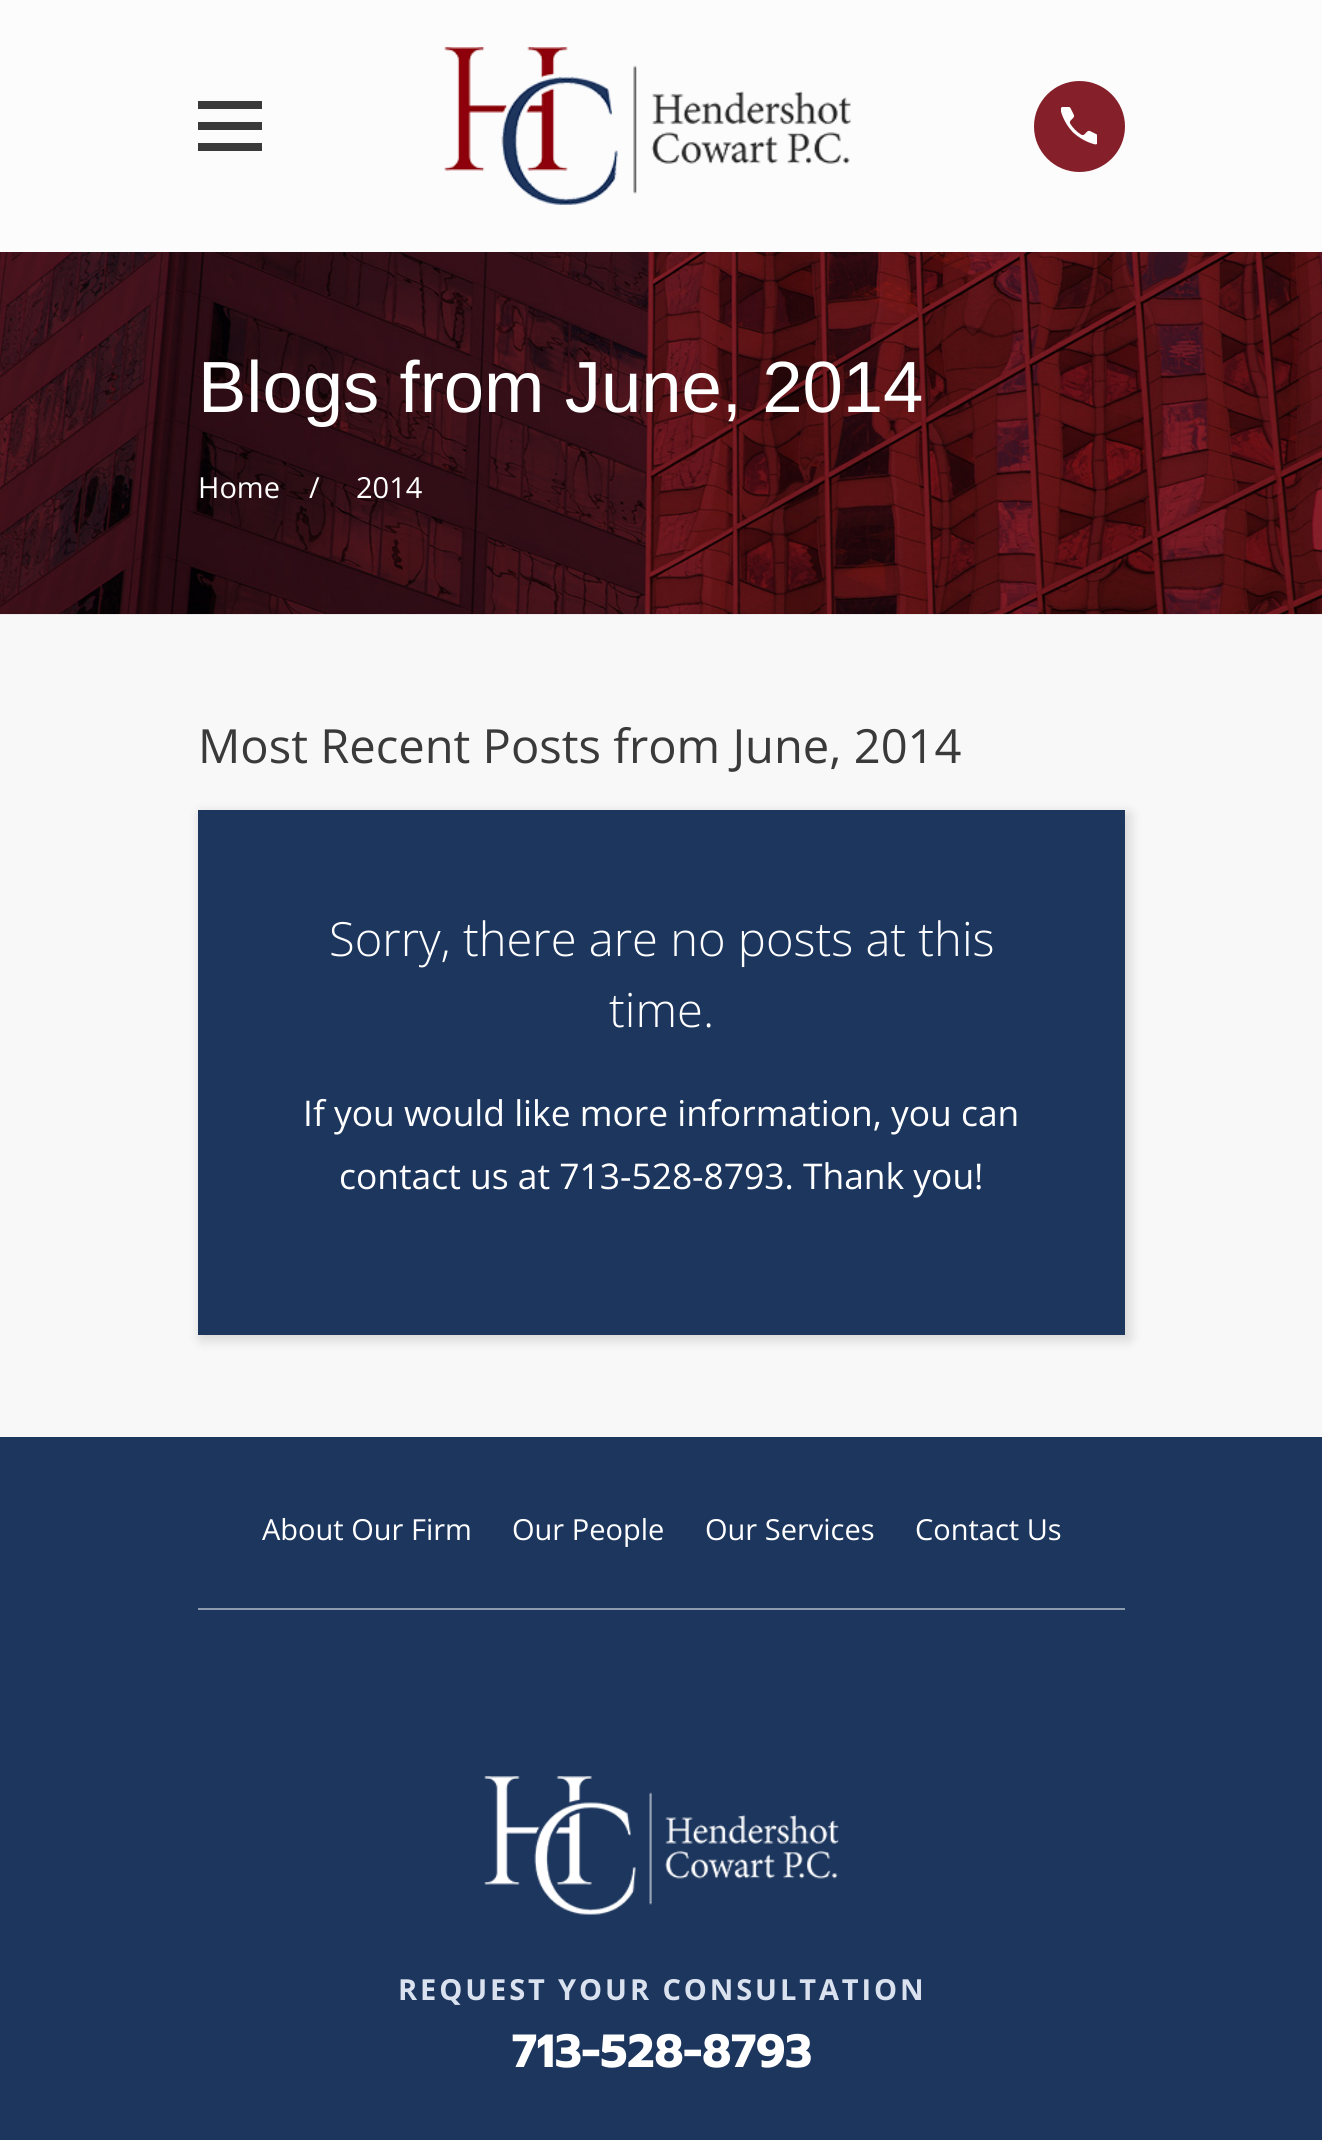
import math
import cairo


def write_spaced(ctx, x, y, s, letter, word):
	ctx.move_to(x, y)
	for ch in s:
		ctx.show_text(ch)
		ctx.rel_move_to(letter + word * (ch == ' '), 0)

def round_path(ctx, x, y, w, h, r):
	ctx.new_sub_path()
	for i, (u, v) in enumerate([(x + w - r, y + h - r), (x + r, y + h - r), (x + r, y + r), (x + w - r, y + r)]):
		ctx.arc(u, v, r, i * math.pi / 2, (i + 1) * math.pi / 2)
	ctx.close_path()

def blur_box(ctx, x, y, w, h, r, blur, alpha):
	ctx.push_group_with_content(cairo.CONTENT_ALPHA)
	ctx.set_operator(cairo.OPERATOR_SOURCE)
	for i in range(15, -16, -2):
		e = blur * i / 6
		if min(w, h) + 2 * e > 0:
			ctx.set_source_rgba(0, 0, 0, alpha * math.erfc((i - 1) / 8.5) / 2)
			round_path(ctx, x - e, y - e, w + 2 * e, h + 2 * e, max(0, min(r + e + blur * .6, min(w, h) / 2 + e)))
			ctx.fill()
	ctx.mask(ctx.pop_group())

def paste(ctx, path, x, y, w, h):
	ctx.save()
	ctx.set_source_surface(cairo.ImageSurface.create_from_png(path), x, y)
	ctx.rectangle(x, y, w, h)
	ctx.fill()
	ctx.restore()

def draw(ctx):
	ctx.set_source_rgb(0.976, 0.969, 0.973)
	ctx.paint()
	ctx.set_source_rgb(0.988, 0.988, 0.988)
	ctx.rectangle(0, 0, 1322, 252)
	ctx.fill()
	ctx.set_source_rgb(0.227, 0.227, 0.227)
	ctx.new_path()
	ctx.move_to(198, 101)
	ctx.line_to(198, 109)
	ctx.line_to(262, 109)
	ctx.line_to(262, 101)
	ctx.close_path()
	ctx.move_to(198, 122)
	ctx.line_to(198, 130)
	ctx.line_to(262, 130)
	ctx.line_to(262, 122)
	ctx.close_path()
	ctx.move_to(198, 143)
	ctx.line_to(198, 151)
	ctx.line_to(262, 151)
	ctx.line_to(262, 143)
	ctx.close_path()
	ctx.fill()
	paste(ctx, 'media/1.png', 444, 47, 407, 158)
	ctx.set_source_rgb(0.522, 0.125, 0.165)
	ctx.arc(1079.5, 126.5, 45.5, 0, 2 * math.pi)
	ctx.fill()
	paste(ctx, 'media/2.png', 1061, 107, 36, 38)
	paste(ctx, 'media/3.png', 0, 252, 1322, 363)
	ctx.select_font_face('Liberation Sans')
	ctx.set_font_size(72.5)
	ctx.set_source_rgb(1, 1, 1)
	ctx.move_to(198, 412)
	ctx.show_text('Blogs from June, 2014')
	ctx.select_font_face('Open Sans')
	ctx.set_font_size(29)
	for x, y, s in [
		(198, 498, 'Home'),
		(309, 498, '/'),
		(356, 498, '2014'),
	]:
		ctx.move_to(x, y)
		ctx.show_text(s)
	ctx.set_font_size(47.1)
	ctx.set_source_rgb(0.227, 0.227, 0.227)
	ctx.move_to(198, 763)
	ctx.show_text('Most Recent Posts from June, 2014')
	ctx.set_source_rgb(0, 0, 0)
	blur_box(ctx, 201, 814, 928, 525, 0, 7, 0.16)
	ctx.set_source_rgb(0.114, 0.212, 0.369)
	ctx.rectangle(198, 810, 927, 525)
	ctx.fill()
	ctx.select_font_face('Open Sans Light')
	ctx.set_source_rgb(1, 1, 1)
	ctx.move_to(329, 956)
	ctx.show_text('Sorry, there are no posts at this')
	ctx.move_to(609, 1027)
	ctx.show_text('time.')
	ctx.select_font_face('Open Sans')
	ctx.set_font_size(35.4)
	ctx.move_to(303, 1126)
	ctx.show_text('If you would like more information, you can')
	ctx.move_to(339, 1189)
	ctx.show_text('contact us at 713-528-8793. Thank you!')
	ctx.set_source_rgb(0.114, 0.212, 0.369)
	ctx.rectangle(0, 1437, 1322, 703)
	ctx.fill()
	ctx.set_source_rgb(0.557, 0.608, 0.686)
	ctx.rectangle(198, 1608, 927, 2)
	ctx.fill()
	ctx.set_font_size(29)
	ctx.set_source_rgb(1, 1, 1)
	for x, y, s in [
		(262, 1540, 'About Our Firm'),
		(512, 1540, 'Our People'),
		(705, 1540, 'Our Services'),
		(915, 1540, 'Contact Us'),
	]:
		ctx.move_to(x, y)
		ctx.show_text(s)
	paste(ctx, 'media/4.png', 484, 1776, 355, 139)
	ctx.select_font_face('Open Sans', cairo.FONT_SLANT_NORMAL, cairo.FONT_WEIGHT_BOLD)
	ctx.set_source_rgb(0.859, 0.886, 0.937)
	write_spaced(ctx, 398, 2000, 'REQUEST YOUR CONSULTATION', 2.9, 0)
	ctx.select_font_face('Prompt', cairo.FONT_SLANT_NORMAL, cairo.FONT_WEIGHT_BOLD)
	ctx.set_font_size(46.5)
	ctx.set_source_rgb(1, 1, 1)
	ctx.move_to(512, 2067)
	ctx.show_text('713-528-8793')


surface = cairo.ImageSurface(cairo.FORMAT_RGB24, 1322, 2140)
ctx = cairo.Context(surface)
options = cairo.FontOptions()
options.set_hint_metrics(cairo.HINT_METRICS_OFF)
options.set_hint_style(cairo.HINT_STYLE_NONE)
ctx.set_font_options(options)
ctx.set_miter_limit(4)
draw(ctx)
surface.write_to_png('image.png')
